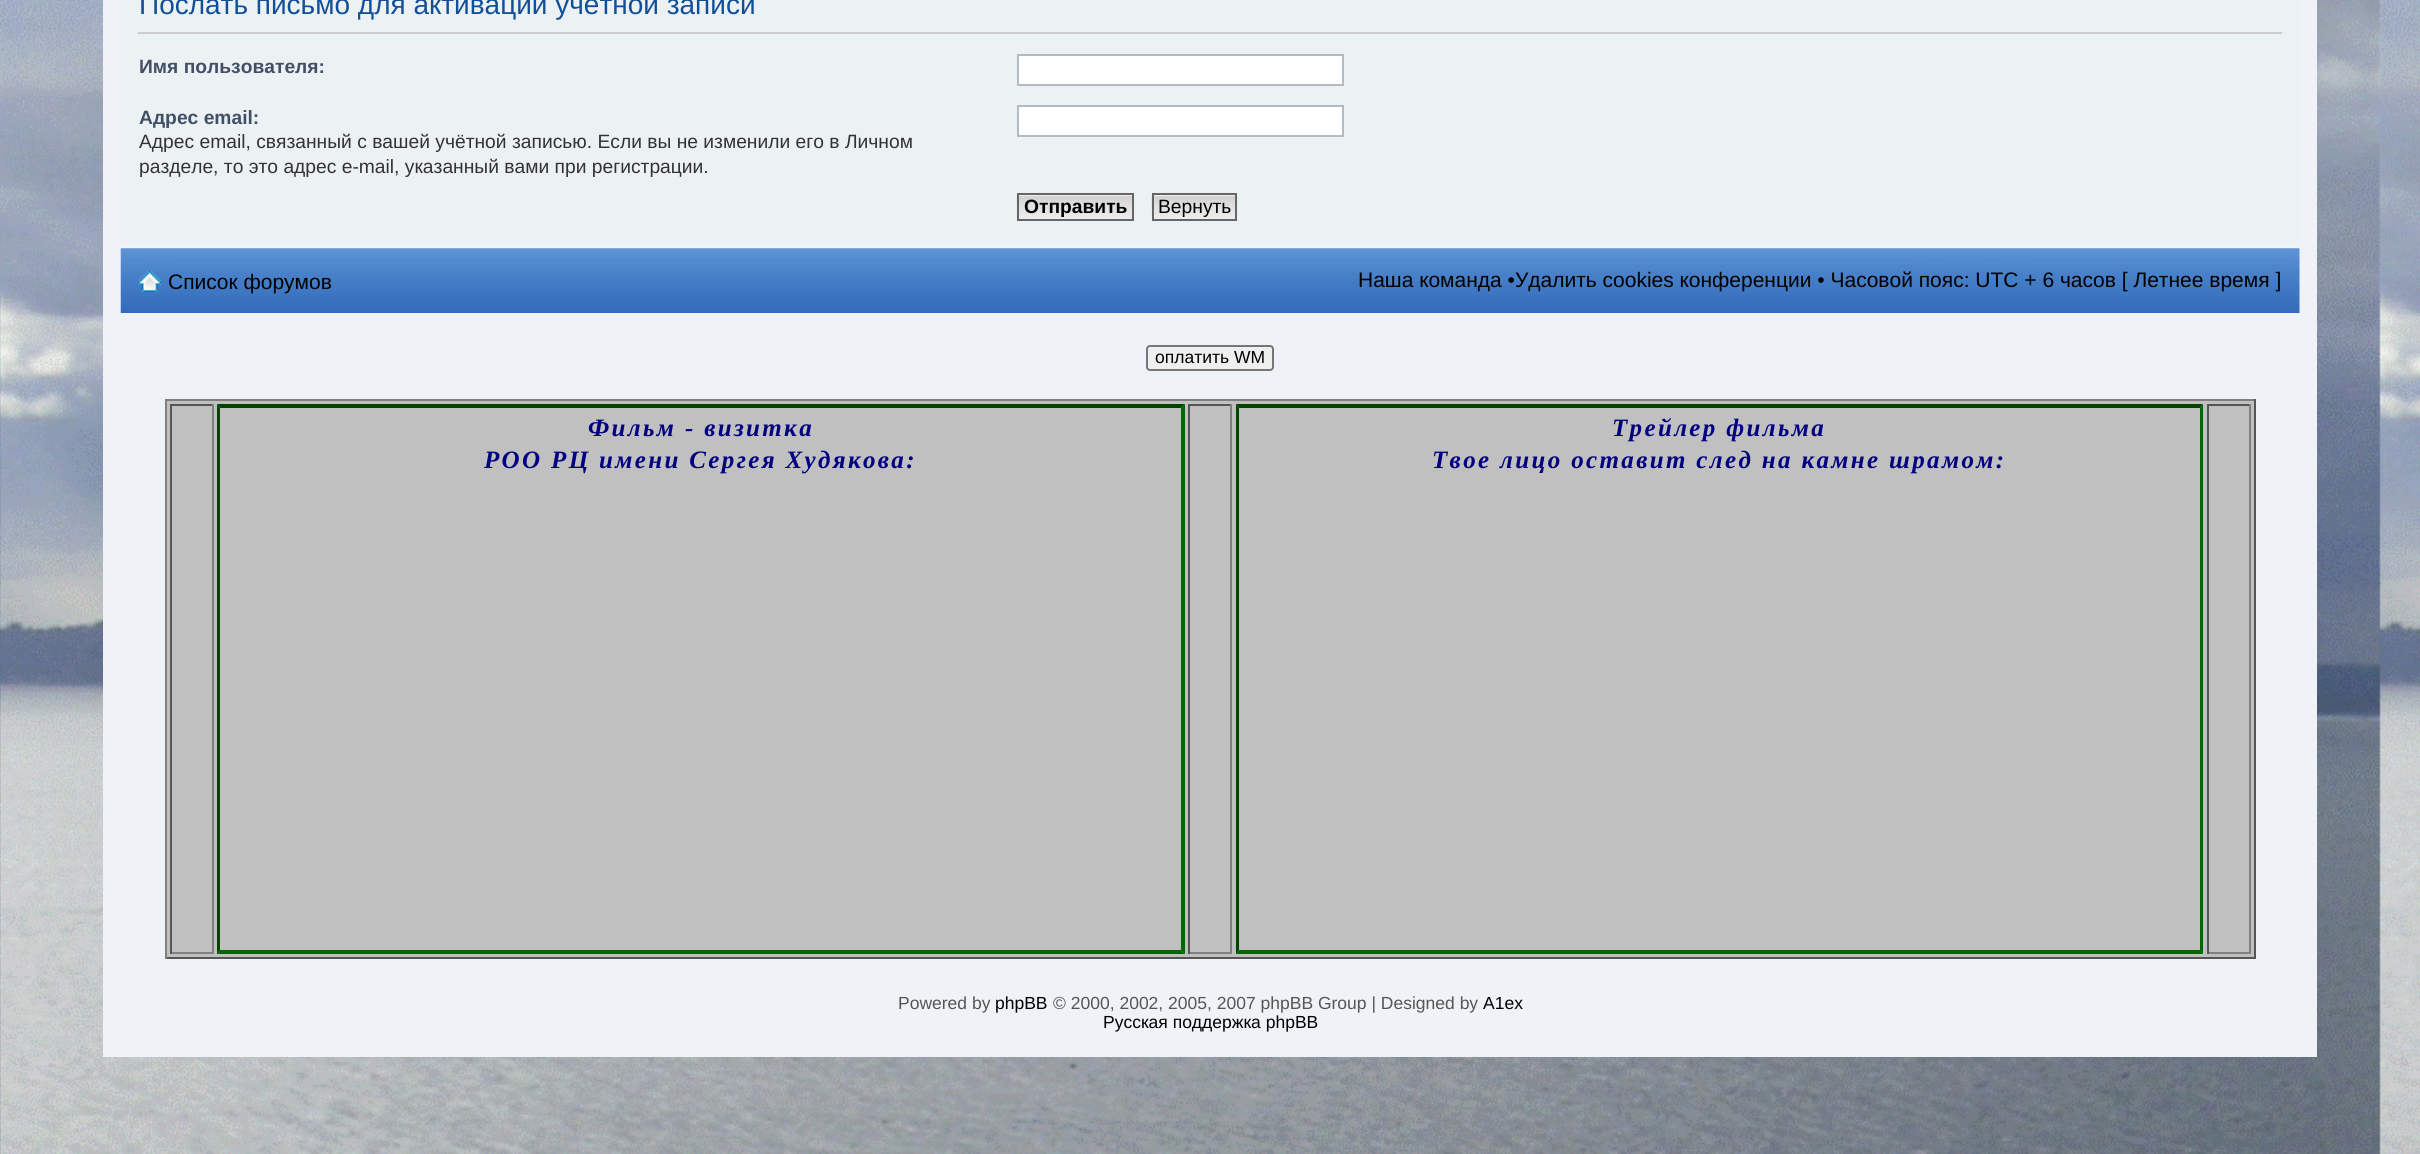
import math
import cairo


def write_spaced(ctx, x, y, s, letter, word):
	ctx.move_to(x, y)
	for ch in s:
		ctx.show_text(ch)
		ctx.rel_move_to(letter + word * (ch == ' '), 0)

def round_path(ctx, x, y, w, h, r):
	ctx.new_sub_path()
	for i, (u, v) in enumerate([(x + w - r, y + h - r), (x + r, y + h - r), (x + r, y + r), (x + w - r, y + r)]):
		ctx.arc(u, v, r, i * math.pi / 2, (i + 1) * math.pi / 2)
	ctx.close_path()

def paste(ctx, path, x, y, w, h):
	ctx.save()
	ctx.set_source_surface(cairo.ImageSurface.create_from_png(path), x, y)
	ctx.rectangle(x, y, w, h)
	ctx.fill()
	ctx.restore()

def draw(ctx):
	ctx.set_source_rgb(1, 1, 1)
	ctx.paint()
	paste(ctx, 'media/1.png', 0, 0, 2420, 1154)
	ctx.set_source_rgb(0.937, 0.953, 0.965)
	ctx.rectangle(103, 0, 2214, 1057)
	ctx.fill()
	ctx.set_source_rgb(0.925, 0.945, 0.953)
	ctx.rectangle(121, 0, 2179, 242)
	ctx.fill()
	ctx.set_source_rgb(0.8, 0.8, 0.8)
	ctx.rectangle(138, 32, 2144, 2)
	ctx.fill()
	ctx.select_font_face('Liberation Sans')
	ctx.set_font_size(28)
	ctx.set_source_rgb(0.067, 0.314, 0.596)
	ctx.move_to(139, 14)
	ctx.show_text('Послать письмо для активации учётной записи')
	ctx.select_font_face('Liberation Sans', cairo.FONT_SLANT_NORMAL, cairo.FONT_WEIGHT_BOLD)
	ctx.set_font_size(19.25)
	ctx.set_source_rgb(0.259, 0.314, 0.404)
	ctx.move_to(139, 73)
	ctx.show_text('Имя пользователя:')
	ctx.set_source_rgb(1, 1, 1)
	ctx.rectangle(1018, 55, 325, 30)
	ctx.fill_preserve()
	ctx.set_source_rgb(0.706, 0.729, 0.753)
	ctx.stroke()
	ctx.set_source_rgb(0.259, 0.314, 0.404)
	ctx.move_to(139, 124)
	ctx.show_text('Адрес email:')
	ctx.select_font_face('Liberation Sans')
	ctx.set_source_rgb(0.2, 0.2, 0.2)
	ctx.move_to(139, 148)
	ctx.show_text('Адрес email, связанный с вашей учётной записью. Если вы не изменили его в Личном')
	ctx.move_to(139, 173)
	ctx.show_text('разделе, то это адрес e-mail, указанный вами при регистрации.')
	ctx.set_source_rgb(1, 1, 1)
	ctx.rectangle(1018, 106, 325, 30)
	ctx.fill_preserve()
	ctx.set_source_rgb(0.706, 0.729, 0.753)
	ctx.stroke()
	paste(ctx, 'media/2.png', 1016, 194, 116, 26)
	ctx.rectangle(1018, 194, 115, 26)
	ctx.set_source_rgb(0.4, 0.4, 0.4)
	ctx.stroke()
	ctx.select_font_face('Liberation Sans', cairo.FONT_SLANT_NORMAL, cairo.FONT_WEIGHT_BOLD)
	ctx.set_source_rgb(0, 0, 0)
	ctx.move_to(1024, 213)
	ctx.show_text('Отправить')
	paste(ctx, 'media/3.png', 1151, 194, 87, 26)
	ctx.rectangle(1153, 194, 83, 26)
	ctx.set_source_rgb(0.4, 0.4, 0.4)
	ctx.stroke()
	ctx.select_font_face('Liberation Sans')
	ctx.set_source_rgb(0, 0, 0)
	ctx.move_to(1158, 213)
	ctx.show_text('Вернуть')
	paste(ctx, 'media/4.png', 120, 248, 2180, 65)
	paste(ctx, 'media/5.png', 138, 271, 23, 21)
	ctx.set_font_size(21)
	ctx.move_to(168, 289)
	ctx.show_text('Список форумов')
	ctx.move_to(1358, 287)
	ctx.show_text('Наша команда •Удалить cookies конференции • Часовой пояс: UTC + 6 часов [ Летнее время ]')
	ctx.set_source_rgb(0.937, 0.937, 0.937)
	round_path(ctx, 1147, 346, 126, 24, 3)
	ctx.fill_preserve()
	ctx.set_source_rgb(0.463, 0.463, 0.463)
	ctx.stroke()
	ctx.set_font_size(17.5)
	ctx.set_source_rgb(0, 0, 0)
	ctx.move_to(1155, 363)
	ctx.show_text('оплатить WM')
	ctx.set_source_rgb(0.753, 0.753, 0.753)
	ctx.rectangle(167, 401, 2087, 556)
	ctx.fill()
	ctx.set_source_rgb(0.502, 0.502, 0.502)
	ctx.rectangle(165, 399, 2091, 2)
	ctx.fill()
	ctx.set_source_rgb(0.333, 0.333, 0.333)
	ctx.rectangle(2254, 399, 2, 560)
	ctx.rectangle(165, 957, 2091, 2)
	ctx.fill()
	ctx.set_source_rgb(0.502, 0.502, 0.502)
	ctx.rectangle(165, 399, 2, 560)
	ctx.fill()
	ctx.set_source_rgb(0.333, 0.333, 0.333)
	ctx.rectangle(170, 404, 44, 2)
	ctx.fill()
	ctx.set_source_rgb(0.502, 0.502, 0.502)
	ctx.rectangle(212, 404, 2, 550)
	ctx.rectangle(170, 952, 44, 2)
	ctx.fill()
	ctx.set_source_rgb(0.333, 0.333, 0.333)
	ctx.rectangle(170, 404, 2, 550)
	ctx.fill()
	ctx.set_source_rgb(0, 0.267, 0)
	ctx.new_path()
	ctx.move_to(217, 404)
	ctx.line_to(1185, 404)
	ctx.line_to(1181, 408)
	ctx.line_to(220, 408)
	ctx.close_path()
	ctx.fill()
	ctx.set_source_rgb(0, 0.4, 0)
	ctx.new_path()
	ctx.move_to(1185, 404)
	ctx.line_to(1185, 954)
	ctx.line_to(1181, 950)
	ctx.line_to(1181, 408)
	ctx.close_path()
	ctx.fill()
	ctx.new_path()
	ctx.move_to(1185, 954)
	ctx.line_to(217, 954)
	ctx.line_to(220, 950)
	ctx.line_to(1181, 950)
	ctx.close_path()
	ctx.fill()
	ctx.set_source_rgb(0, 0.267, 0)
	ctx.new_path()
	ctx.move_to(217, 954)
	ctx.line_to(217, 404)
	ctx.line_to(220, 408)
	ctx.line_to(220, 950)
	ctx.close_path()
	ctx.fill()
	ctx.select_font_face('Liberation Serif', cairo.FONT_SLANT_ITALIC, cairo.FONT_WEIGHT_BOLD)
	ctx.set_font_size(25)
	ctx.set_source_rgb(0, 0, 0.502)
	write_spaced(ctx, 588, 436, 'Фильм - визитка', 2.35, 0)
	write_spaced(ctx, 484, 468, 'РОО РЦ имени Сергея Худякова:', 2.35, 0)
	ctx.set_source_rgb(0.333, 0.333, 0.333)
	ctx.rectangle(1188, 404, 44, 2)
	ctx.fill()
	ctx.set_source_rgb(0.502, 0.502, 0.502)
	ctx.rectangle(1230, 404, 2, 550)
	ctx.rectangle(1188, 952, 44, 2)
	ctx.fill()
	ctx.set_source_rgb(0.333, 0.333, 0.333)
	ctx.rectangle(1188, 404, 2, 550)
	ctx.fill()
	ctx.set_source_rgb(0, 0.267, 0)
	ctx.new_path()
	ctx.move_to(1236, 404)
	ctx.line_to(2203, 404)
	ctx.line_to(2200, 408)
	ctx.line_to(1239, 408)
	ctx.close_path()
	ctx.fill()
	ctx.set_source_rgb(0, 0.4, 0)
	ctx.new_path()
	ctx.move_to(2203, 404)
	ctx.line_to(2203, 954)
	ctx.line_to(2200, 950)
	ctx.line_to(2200, 408)
	ctx.close_path()
	ctx.fill()
	ctx.new_path()
	ctx.move_to(2203, 954)
	ctx.line_to(1236, 954)
	ctx.line_to(1239, 950)
	ctx.line_to(2200, 950)
	ctx.close_path()
	ctx.fill()
	ctx.set_source_rgb(0, 0.267, 0)
	ctx.new_path()
	ctx.move_to(1236, 954)
	ctx.line_to(1236, 404)
	ctx.line_to(1239, 408)
	ctx.line_to(1239, 950)
	ctx.close_path()
	ctx.fill()
	ctx.set_source_rgb(0, 0, 0.502)
	write_spaced(ctx, 1612, 436, 'Трейлер фильма', 2.35, 0)
	write_spaced(ctx, 1432, 468, 'Твое лицо оставит след на камне шрамом:', 2.35, 0)
	ctx.set_source_rgb(0.333, 0.333, 0.333)
	ctx.rectangle(2207, 404, 44, 2)
	ctx.fill()
	ctx.set_source_rgb(0.502, 0.502, 0.502)
	ctx.rectangle(2249, 404, 2, 550)
	ctx.rectangle(2207, 952, 44, 2)
	ctx.fill()
	ctx.set_source_rgb(0.333, 0.333, 0.333)
	ctx.rectangle(2207, 404, 2, 550)
	ctx.fill()
	ctx.select_font_face('Liberation Sans')
	ctx.set_font_size(17.5)
	ctx.move_to(898, 1009)
	ctx.show_text('Powered by')
	ctx.set_source_rgb(0, 0, 0)
	ctx.move_to(995, 1009)
	ctx.show_text('phpBB')
	ctx.set_source_rgb(0.333, 0.333, 0.333)
	ctx.move_to(1053, 1009)
	ctx.show_text('© 2000, 2002, 2005, 2007 phpBB Group | Designed by')
	ctx.set_source_rgb(0, 0, 0)
	ctx.move_to(1483, 1009)
	ctx.show_text('A1ex')
	ctx.move_to(1103, 1028)
	ctx.show_text('Русская поддержка phpBB')


surface = cairo.ImageSurface(cairo.FORMAT_RGB24, 2420, 1154)
ctx = cairo.Context(surface)
options = cairo.FontOptions()
options.set_hint_metrics(cairo.HINT_METRICS_OFF)
options.set_hint_style(cairo.HINT_STYLE_NONE)
ctx.set_font_options(options)
ctx.set_miter_limit(4)
draw(ctx)
surface.write_to_png('image.png')
